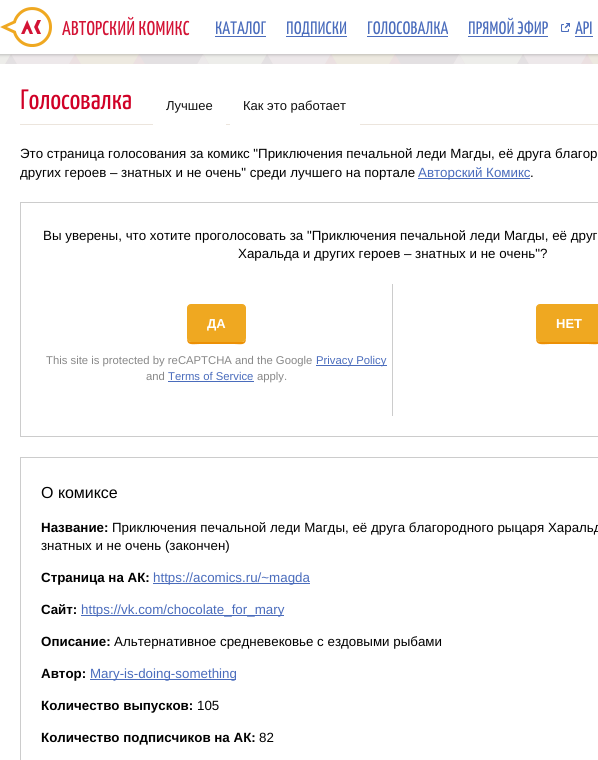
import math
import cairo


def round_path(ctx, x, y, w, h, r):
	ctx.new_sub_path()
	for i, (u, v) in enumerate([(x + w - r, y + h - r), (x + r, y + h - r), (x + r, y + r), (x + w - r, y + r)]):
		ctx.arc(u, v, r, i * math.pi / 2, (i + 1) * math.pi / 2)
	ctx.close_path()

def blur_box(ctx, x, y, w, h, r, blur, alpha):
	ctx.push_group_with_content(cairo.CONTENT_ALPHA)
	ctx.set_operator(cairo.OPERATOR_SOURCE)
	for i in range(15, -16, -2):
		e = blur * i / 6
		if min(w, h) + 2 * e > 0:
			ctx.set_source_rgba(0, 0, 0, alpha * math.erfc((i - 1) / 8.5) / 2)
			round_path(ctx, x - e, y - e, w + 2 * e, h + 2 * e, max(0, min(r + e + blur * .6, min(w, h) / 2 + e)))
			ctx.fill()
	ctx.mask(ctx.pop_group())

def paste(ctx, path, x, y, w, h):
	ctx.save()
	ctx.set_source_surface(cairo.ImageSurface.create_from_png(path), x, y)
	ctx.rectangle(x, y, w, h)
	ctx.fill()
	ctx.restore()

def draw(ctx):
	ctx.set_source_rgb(1, 1, 1)
	ctx.paint()
	paste(ctx, 'media/1.png', 0, 54, 598, 10)
	ctx.set_source_rgb(0, 0, 0)
	blur_box(ctx, -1, -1, 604, 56, 0, 1.5, 0.2)
	ctx.set_source_rgb(1, 1, 1)
	ctx.rectangle(0, 0, 598, 54)
	ctx.fill()
	paste(ctx, 'media/2.png', 0, 7, 52, 40)
	ctx.select_font_face('Yanone Kaffeesatz')
	ctx.set_font_size(20)
	ctx.set_source_rgb(0.827, 0.075, 0.208)
	ctx.move_to(62, 35)
	ctx.show_text('АВТОРСКИЙ КОМИКС')
	ctx.set_font_size(18)
	ctx.set_source_rgb(0.29, 0.424, 0.737)
	ctx.move_to(215, 34)
	ctx.show_text('КАТАЛОГ')
	ctx.rectangle(215, 36, 51, 1)
	ctx.fill()
	ctx.move_to(286, 34)
	ctx.show_text('ПОДПИСКИ')
	ctx.rectangle(286, 36, 61, 1)
	ctx.fill()
	ctx.move_to(367, 34)
	ctx.show_text('ГОЛОСОВАЛКА')
	ctx.rectangle(367, 36, 81, 1)
	ctx.fill()
	ctx.move_to(468, 34)
	ctx.show_text('ПРЯМОЙ ЭФИР')
	ctx.rectangle(468, 36, 80, 1)
	ctx.fill()
	paste(ctx, 'media/3.png', 561, 23, 9, 9)
	ctx.move_to(575, 34)
	ctx.show_text('API')
	ctx.rectangle(575, 36, 18, 1)
	ctx.fill()
	ctx.set_source_rgb(0.922, 0.898, 0.867)
	ctx.rectangle(20, 124, 578, 1)
	ctx.fill()
	ctx.set_font_size(28)
	ctx.set_source_rgb(0.816, 0, 0.149)
	ctx.move_to(20, 109)
	ctx.show_text('Голосовалка')
	ctx.set_source_rgb(1, 1, 1)
	ctx.rectangle(153, 124, 73, 1)
	ctx.fill()
	ctx.select_font_face('Liberation Sans')
	ctx.set_font_size(13)
	ctx.set_source_rgb(0.067, 0.067, 0.067)
	ctx.move_to(166, 110)
	ctx.show_text('Лучшее')
	ctx.set_source_rgb(1, 1, 1)
	ctx.rectangle(230, 124, 130, 1)
	ctx.fill()
	ctx.set_source_rgb(0.067, 0.067, 0.067)
	ctx.move_to(243, 110)
	ctx.show_text('Как это работает')
	ctx.set_font_size(13.35)
	ctx.set_source_rgb(0, 0, 0)
	ctx.move_to(20, 158)
	ctx.show_text('Это страница голосования за комикс "Приключения печальной леди Магды, её друга благор')
	ctx.move_to(20, 177)
	ctx.show_text('других героев – знатных и не очень" среди лучшего на портале')
	ctx.set_source_rgb(0.29, 0.424, 0.737)
	ctx.rectangle(418, 178, 112, 1)
	ctx.fill()
	ctx.move_to(418, 177)
	ctx.show_text('Авторский Комикс')
	ctx.set_source_rgb(0, 0, 0)
	ctx.move_to(530, 177)
	ctx.show_text('.')
	ctx.rectangle(20.5, 202.5, 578, 234)
	ctx.set_source_rgb(0.8, 0.8, 0.8)
	ctx.set_line_width(1)
	ctx.stroke()
	ctx.set_source_rgb(0, 0, 0)
	ctx.move_to(43, 240)
	ctx.show_text('Вы уверены, что хотите проголосовать за "Приключения печальной леди Магды, её друг')
	ctx.move_to(238, 258)
	ctx.show_text('Харальда и других героев – знатных и не очень"?')
	ctx.set_source_rgb(0.8, 0.8, 0.8)
	ctx.rectangle(392, 284, 1, 132)
	ctx.fill()
	ctx.set_source_rgb(0.925, 0.565, 0.02)
	ctx.new_path()
	ctx.move_to(187, 338)
	ctx.curve_to(187, 346, 192, 344, 200, 344)
	ctx.line_to(234, 344)
	ctx.curve_to(241, 344, 246, 346, 246, 338)
	ctx.curve_to(246, 340, 244, 342, 242, 342)
	ctx.line_to(191, 342)
	ctx.curve_to(189, 342, 187, 340, 187, 338)
	ctx.close_path()
	ctx.fill()
	ctx.set_source_rgb(0.937, 0.659, 0.129)
	round_path(ctx, 187.5, 304.5, 58, 37, 3.5)
	ctx.fill_preserve()
	ctx.stroke()
	ctx.select_font_face('Liberation Sans', cairo.FONT_SLANT_NORMAL, cairo.FONT_WEIGHT_BOLD)
	ctx.set_font_size(13)
	ctx.set_source_rgb(1, 1, 1)
	ctx.move_to(207, 328)
	ctx.show_text('ДА')
	ctx.select_font_face('Liberation Sans')
	ctx.set_font_size(11.3)
	ctx.set_source_rgb(0.533, 0.533, 0.533)
	ctx.move_to(46, 364)
	ctx.show_text('This site is protected by reCAPTCHA and the Google')
	ctx.set_source_rgb(0.29, 0.424, 0.737)
	ctx.rectangle(316, 365, 71, 1)
	ctx.fill()
	ctx.move_to(316, 364)
	ctx.show_text('Privacy Policy')
	ctx.set_source_rgb(0.533, 0.533, 0.533)
	ctx.move_to(146, 380)
	ctx.show_text('and')
	ctx.set_source_rgb(0.29, 0.424, 0.737)
	ctx.move_to(168, 380)
	ctx.show_text('Terms of Service')
	ctx.rectangle(168, 381, 86, 1)
	ctx.fill()
	ctx.set_source_rgb(0.533, 0.533, 0.533)
	ctx.move_to(257, 380)
	ctx.show_text('apply.')
	ctx.set_source_rgb(0.925, 0.565, 0.02)
	ctx.new_path()
	ctx.move_to(536, 338)
	ctx.curve_to(536, 346, 542, 344, 550, 344)
	ctx.line_to(588, 344)
	ctx.curve_to(596, 344, 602, 346, 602, 338)
	ctx.curve_to(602, 340, 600, 342, 598, 342)
	ctx.line_to(540, 342)
	ctx.curve_to(538, 342, 536, 340, 536, 338)
	ctx.close_path()
	ctx.fill()
	ctx.set_source_rgb(0.937, 0.659, 0.129)
	round_path(ctx, 536.5, 304.5, 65, 37, 3.5)
	ctx.fill_preserve()
	ctx.stroke()
	ctx.select_font_face('Liberation Sans', cairo.FONT_SLANT_NORMAL, cairo.FONT_WEIGHT_BOLD)
	ctx.set_font_size(13)
	ctx.set_source_rgb(1, 1, 1)
	ctx.move_to(556, 328)
	ctx.show_text('НЕТ')
	ctx.rectangle(20.5, 457.5, 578, 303)
	ctx.set_source_rgb(0.8, 0.8, 0.8)
	ctx.stroke()
	ctx.select_font_face('Liberation Sans')
	ctx.set_font_size(16)
	ctx.set_source_rgb(0, 0, 0)
	ctx.move_to(41, 498)
	ctx.show_text('О комиксе')
	ctx.select_font_face('Liberation Sans', cairo.FONT_SLANT_NORMAL, cairo.FONT_WEIGHT_BOLD)
	ctx.set_font_size(13.35)
	ctx.move_to(41, 532)
	ctx.show_text('Название:')
	ctx.select_font_face('Liberation Sans')
	ctx.move_to(112, 532)
	ctx.show_text('Приключения печальной леди Магды, её друга благородного рыцаря Харальд')
	ctx.move_to(41, 550)
	ctx.show_text('знатных и не очень (закончен)')
	ctx.select_font_face('Liberation Sans', cairo.FONT_SLANT_NORMAL, cairo.FONT_WEIGHT_BOLD)
	ctx.move_to(41, 582)
	ctx.show_text('Страница на АК:')
	ctx.set_source_rgb(0.29, 0.424, 0.737)
	ctx.rectangle(153, 583, 157, 1)
	ctx.fill()
	ctx.select_font_face('Liberation Sans')
	ctx.move_to(153, 582)
	ctx.show_text('https://acomics.ru/~magda')
	ctx.select_font_face('Liberation Sans', cairo.FONT_SLANT_NORMAL, cairo.FONT_WEIGHT_BOLD)
	ctx.set_source_rgb(0, 0, 0)
	ctx.move_to(41, 614)
	ctx.show_text('Сайт:')
	ctx.set_source_rgb(0.29, 0.424, 0.737)
	ctx.rectangle(81, 615, 203, 1)
	ctx.fill()
	ctx.select_font_face('Liberation Sans')
	ctx.move_to(81, 614)
	ctx.show_text('https://vk.com/chocolate_for_mary')
	ctx.select_font_face('Liberation Sans', cairo.FONT_SLANT_NORMAL, cairo.FONT_WEIGHT_BOLD)
	ctx.set_source_rgb(0, 0, 0)
	ctx.move_to(41, 646)
	ctx.show_text('Описание:')
	ctx.select_font_face('Liberation Sans')
	ctx.move_to(114, 646)
	ctx.show_text('Альтернативное средневековье с ездовыми рыбами')
	ctx.select_font_face('Liberation Sans', cairo.FONT_SLANT_NORMAL, cairo.FONT_WEIGHT_BOLD)
	ctx.move_to(41, 678)
	ctx.show_text('Автор:')
	ctx.set_source_rgb(0.29, 0.424, 0.737)
	ctx.rectangle(90, 679, 146, 1)
	ctx.fill()
	ctx.select_font_face('Liberation Sans')
	ctx.move_to(90, 678)
	ctx.show_text('Mary-is-doing-something')
	ctx.select_font_face('Liberation Sans', cairo.FONT_SLANT_NORMAL, cairo.FONT_WEIGHT_BOLD)
	ctx.set_source_rgb(0, 0, 0)
	ctx.move_to(41, 710)
	ctx.show_text('Количество выпусков:')
	ctx.select_font_face('Liberation Sans')
	ctx.move_to(197, 710)
	ctx.show_text('105')
	ctx.select_font_face('Liberation Sans', cairo.FONT_SLANT_NORMAL, cairo.FONT_WEIGHT_BOLD)
	ctx.move_to(41, 742)
	ctx.show_text('Количество подписчиков на АК:')
	ctx.select_font_face('Liberation Sans')
	ctx.move_to(259, 742)
	ctx.show_text('82')


surface = cairo.ImageSurface(cairo.FORMAT_RGB24, 598, 760)
ctx = cairo.Context(surface)
options = cairo.FontOptions()
options.set_hint_metrics(cairo.HINT_METRICS_OFF)
options.set_hint_style(cairo.HINT_STYLE_NONE)
ctx.set_font_options(options)
ctx.set_miter_limit(4)
draw(ctx)
surface.write_to_png('image.png')
